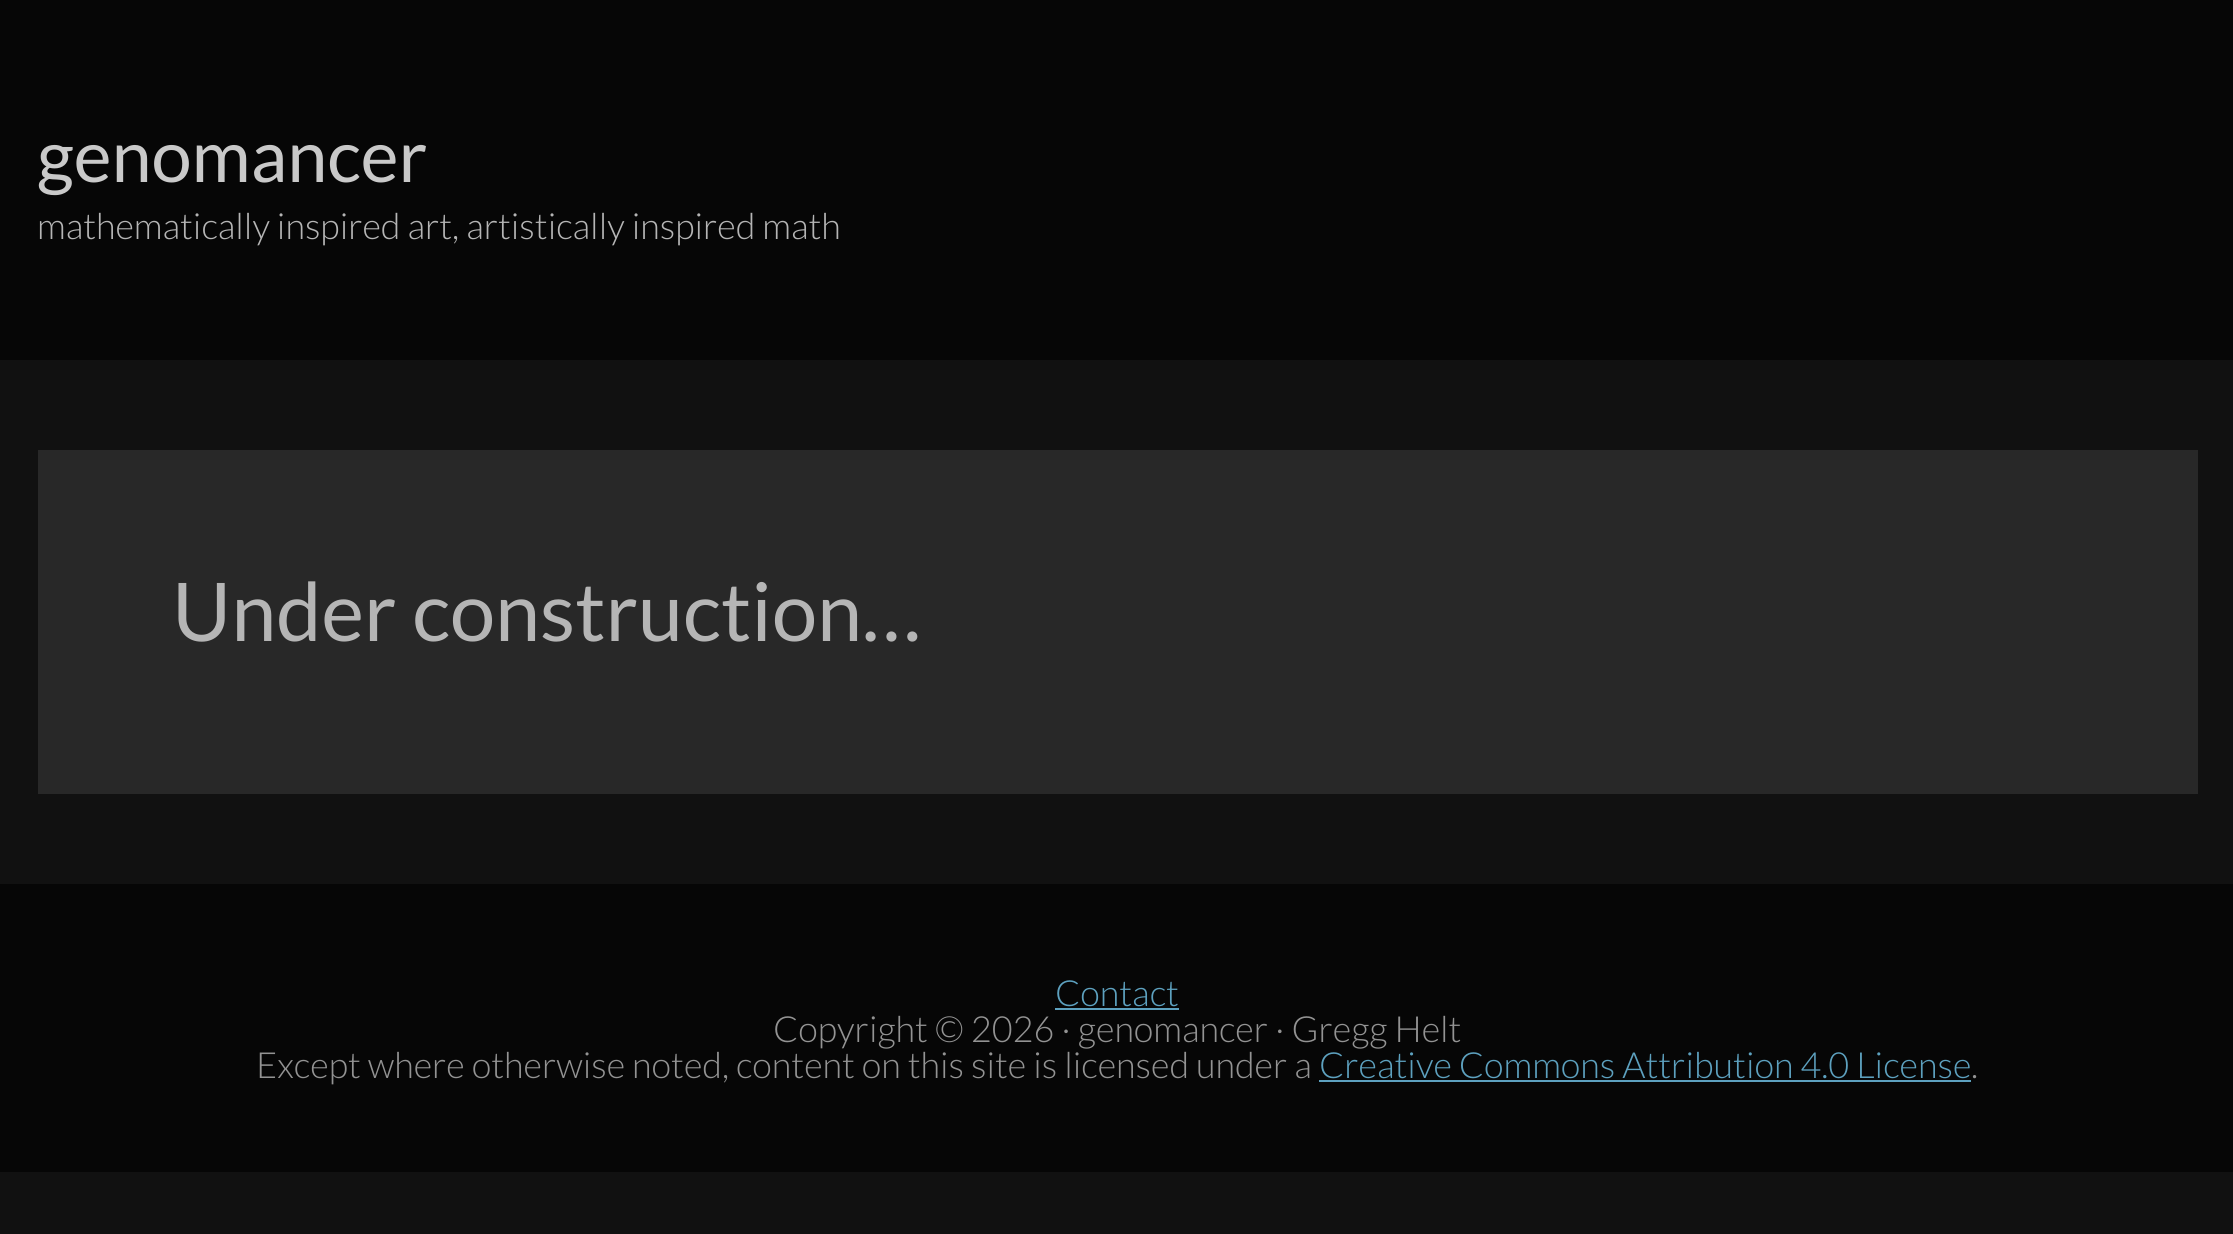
import math
import cairo


def draw(ctx):
	ctx.set_source_rgb(0.067, 0.067, 0.067)
	ctx.paint()
	ctx.set_source_rgb(0.027, 0.027, 0.027)
	ctx.rectangle(0, 0, 2233, 360)
	ctx.fill()
	ctx.select_font_face('Lato')
	ctx.set_font_size(72)
	ctx.set_source_rgb(0.788, 0.788, 0.788)
	ctx.move_to(37, 182)
	ctx.show_text('genomancer')
	ctx.select_font_face('Lato Light')
	ctx.set_font_size(36)
	ctx.set_source_rgb(0.71, 0.71, 0.71)
	ctx.move_to(37, 239)
	ctx.show_text('mathematically inspired art, artistically inspired math')
	ctx.set_source_rgb(0.157, 0.157, 0.157)
	ctx.rectangle(38, 450, 2160, 344)
	ctx.fill()
	ctx.select_font_face('Lato')
	ctx.set_font_size(81)
	ctx.set_source_rgb(0.71, 0.71, 0.71)
	ctx.move_to(172, 641)
	ctx.show_text('Under construction…')
	ctx.set_source_rgb(0.027, 0.027, 0.027)
	ctx.rectangle(0, 884, 2233, 288)
	ctx.fill()
	ctx.select_font_face('Lato Light')
	ctx.set_font_size(36)
	ctx.set_source_rgb(0.365, 0.631, 0.749)
	ctx.move_to(1055, 1006)
	ctx.show_text('Contact')
	ctx.rectangle(1055, 1008, 124, 2)
	ctx.fill()
	ctx.set_source_rgb(0.576, 0.576, 0.576)
	ctx.move_to(773, 1042)
	ctx.show_text('Copyright © 2026 · genomancer · Gregg Helt')
	ctx.move_to(256, 1078)
	ctx.show_text('Except where otherwise noted, content on this site is licensed under a')
	ctx.set_source_rgb(0.365, 0.631, 0.749)
	ctx.move_to(1319, 1078)
	ctx.show_text('Creative Commons Attribution 4.0 License')
	ctx.rectangle(1319, 1080, 652, 2)
	ctx.fill()
	ctx.set_source_rgb(0.576, 0.576, 0.576)
	ctx.move_to(1971, 1078)
	ctx.show_text('.')


surface = cairo.ImageSurface(cairo.FORMAT_RGB24, 2233, 1234)
ctx = cairo.Context(surface)
options = cairo.FontOptions()
options.set_hint_metrics(cairo.HINT_METRICS_OFF)
options.set_hint_style(cairo.HINT_STYLE_NONE)
ctx.set_font_options(options)
ctx.set_miter_limit(4)
draw(ctx)
surface.write_to_png('image.png')
